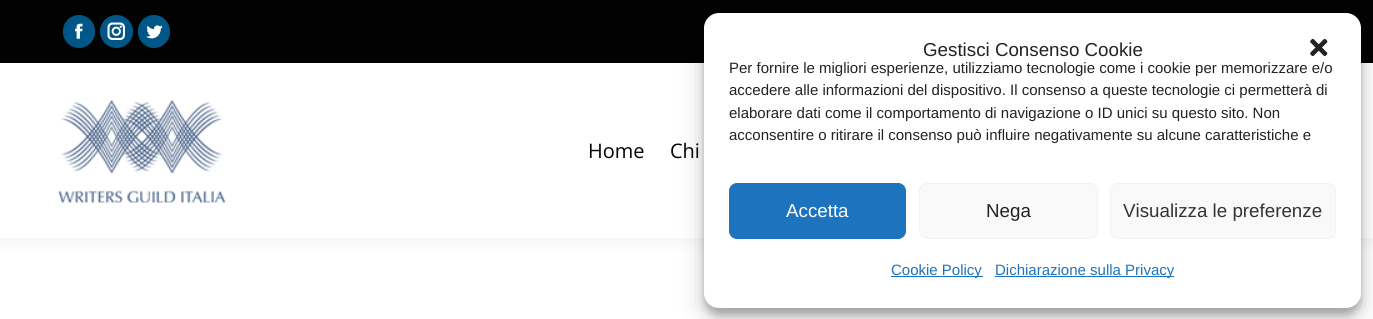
import math
import cairo


def round_path(ctx, x, y, w, h, r):
	ctx.new_sub_path()
	for i, (u, v) in enumerate([(x + w - r, y + h - r), (x + r, y + h - r), (x + r, y + r), (x + w - r, y + r)]):
		ctx.arc(u, v, r, i * math.pi / 2, (i + 1) * math.pi / 2)
	ctx.close_path()

def blur_box(ctx, x, y, w, h, r, blur, alpha):
	ctx.push_group_with_content(cairo.CONTENT_ALPHA)
	ctx.set_operator(cairo.OPERATOR_SOURCE)
	for i in range(15, -16, -2):
		e = blur * i / 6
		if min(w, h) + 2 * e > 0:
			ctx.set_source_rgba(0, 0, 0, alpha * math.erfc((i - 1) / 8.5) / 2)
			round_path(ctx, x - e, y - e, w + 2 * e, h + 2 * e, max(0, min(r + e + blur * .6, min(w, h) / 2 + e)))
			ctx.fill()
	ctx.mask(ctx.pop_group())

def paste(ctx, path, x, y, w, h):
	ctx.save()
	ctx.set_source_surface(cairo.ImageSurface.create_from_png(path), x, y)
	ctx.rectangle(x, y, w, h)
	ctx.fill()
	ctx.restore()

def draw(ctx):
	ctx.set_source_rgb(1, 1, 1)
	ctx.paint()
	ctx.set_source_rgb(0, 0, 0)
	blur_box(ctx, -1, -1, 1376, 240, 0, 9.5, 0.07)
	ctx.set_source_rgb(1, 1, 1)
	ctx.rectangle(0, 63, 1373, 175)
	ctx.fill()
	ctx.set_source_rgb(0.008, 0.008, 0.008)
	ctx.rectangle(0, 0, 1373, 63)
	ctx.fill()
	ctx.set_source_rgb(0, 0.341, 0.529)
	round_path(ctx, 63, 15, 32, 33, 16)
	ctx.fill()
	paste(ctx, 'media/1.png', 75, 23, 8, 16)
	ctx.arc(116.5, 31.5, 16.5, 0, 2 * math.pi)
	ctx.fill()
	paste(ctx, 'media/2.png', 107, 22, 18, 18)
	round_path(ctx, 138, 15, 32, 33, 16)
	ctx.fill()
	paste(ctx, 'media/3.png', 146, 25, 17, 14)
	paste(ctx, 'media/4.png', 58, 100, 168, 103)
	ctx.select_font_face('Open Sans')
	ctx.set_font_size(20)
	ctx.set_source_rgb(0.008, 0.008, 0.008)
	ctx.move_to(588, 158)
	ctx.show_text('Home')
	ctx.move_to(670, 158)
	ctx.show_text('Chi')
	ctx.set_source_rgb(0, 0, 0)
	blur_box(ctx, 704, 20, 657, 295, 15, 4, 0.23)
	blur_box(ctx, 704, 25, 657, 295, 15, 12.5, 0.19)
	ctx.set_source_rgb(1, 1, 1)
	round_path(ctx, 704, 13, 657, 295, 15)
	ctx.fill()
	ctx.select_font_face('Liberation Sans')
	ctx.set_font_size(18.75)
	ctx.set_source_rgb(0.133, 0.133, 0.133)
	ctx.move_to(923, 56)
	ctx.show_text('Gestisci Consenso Cookie')
	paste(ctx, 'media/5.png', 1310, 38, 18, 19)
	ctx.set_font_size(15)
	for x, y, s in [
		(729, 73, 'Per fornire le migliori esperienze, utilizziamo tecnologie come i cookie per memorizzare e/o'),
		(729, 95, 'accedere alle informazioni del dispositivo. Il consenso a queste tecnologie ci permetterà di'),
		(729, 118, 'elaborare dati come il comportamento di navigazione o ID unici su questo sito. Non'),
		(729, 140, 'acconsentire o ritirare il consenso può influire negativamente su alcune caratteristiche e'),
	]:
		ctx.move_to(x, y)
		ctx.show_text(s)
	ctx.set_source_rgb(0.118, 0.451, 0.745)
	round_path(ctx, 729.5, 183.5, 176, 55, 7.5)
	ctx.fill_preserve()
	ctx.set_line_width(1)
	ctx.stroke()
	ctx.set_font_size(18.75)
	ctx.set_source_rgb(1, 1, 1)
	ctx.move_to(786, 217)
	ctx.show_text('Accetta')
	ctx.set_source_rgb(0.976, 0.976, 0.976)
	round_path(ctx, 919.5, 183.5, 178, 55, 7.5)
	ctx.fill_preserve()
	ctx.set_source_rgb(0.949, 0.949, 0.949)
	ctx.stroke()
	ctx.set_source_rgb(0.133, 0.133, 0.133)
	ctx.move_to(986, 217)
	ctx.show_text('Nega')
	ctx.set_source_rgb(0.976, 0.976, 0.976)
	round_path(ctx, 1110.5, 183.5, 225, 55, 7.5)
	ctx.fill_preserve()
	ctx.set_source_rgb(0.949, 0.949, 0.949)
	ctx.stroke()
	ctx.set_source_rgb(0.2, 0.2, 0.2)
	ctx.move_to(1123, 217)
	ctx.show_text('Visualizza le preferenze')
	ctx.set_source_rgb(0.118, 0.451, 0.745)
	ctx.rectangle(891, 276, 92, 1)
	ctx.fill()
	ctx.set_font_size(15)
	ctx.move_to(891, 275)
	ctx.show_text('Cookie Policy')
	ctx.rectangle(995, 276, 179, 1)
	ctx.fill()
	ctx.move_to(995, 275)
	ctx.show_text('Dichiarazione sulla Privacy')


surface = cairo.ImageSurface(cairo.FORMAT_RGB24, 1373, 319)
ctx = cairo.Context(surface)
options = cairo.FontOptions()
options.set_hint_metrics(cairo.HINT_METRICS_OFF)
options.set_hint_style(cairo.HINT_STYLE_NONE)
ctx.set_font_options(options)
ctx.set_miter_limit(4)
draw(ctx)
surface.write_to_png('image.png')
